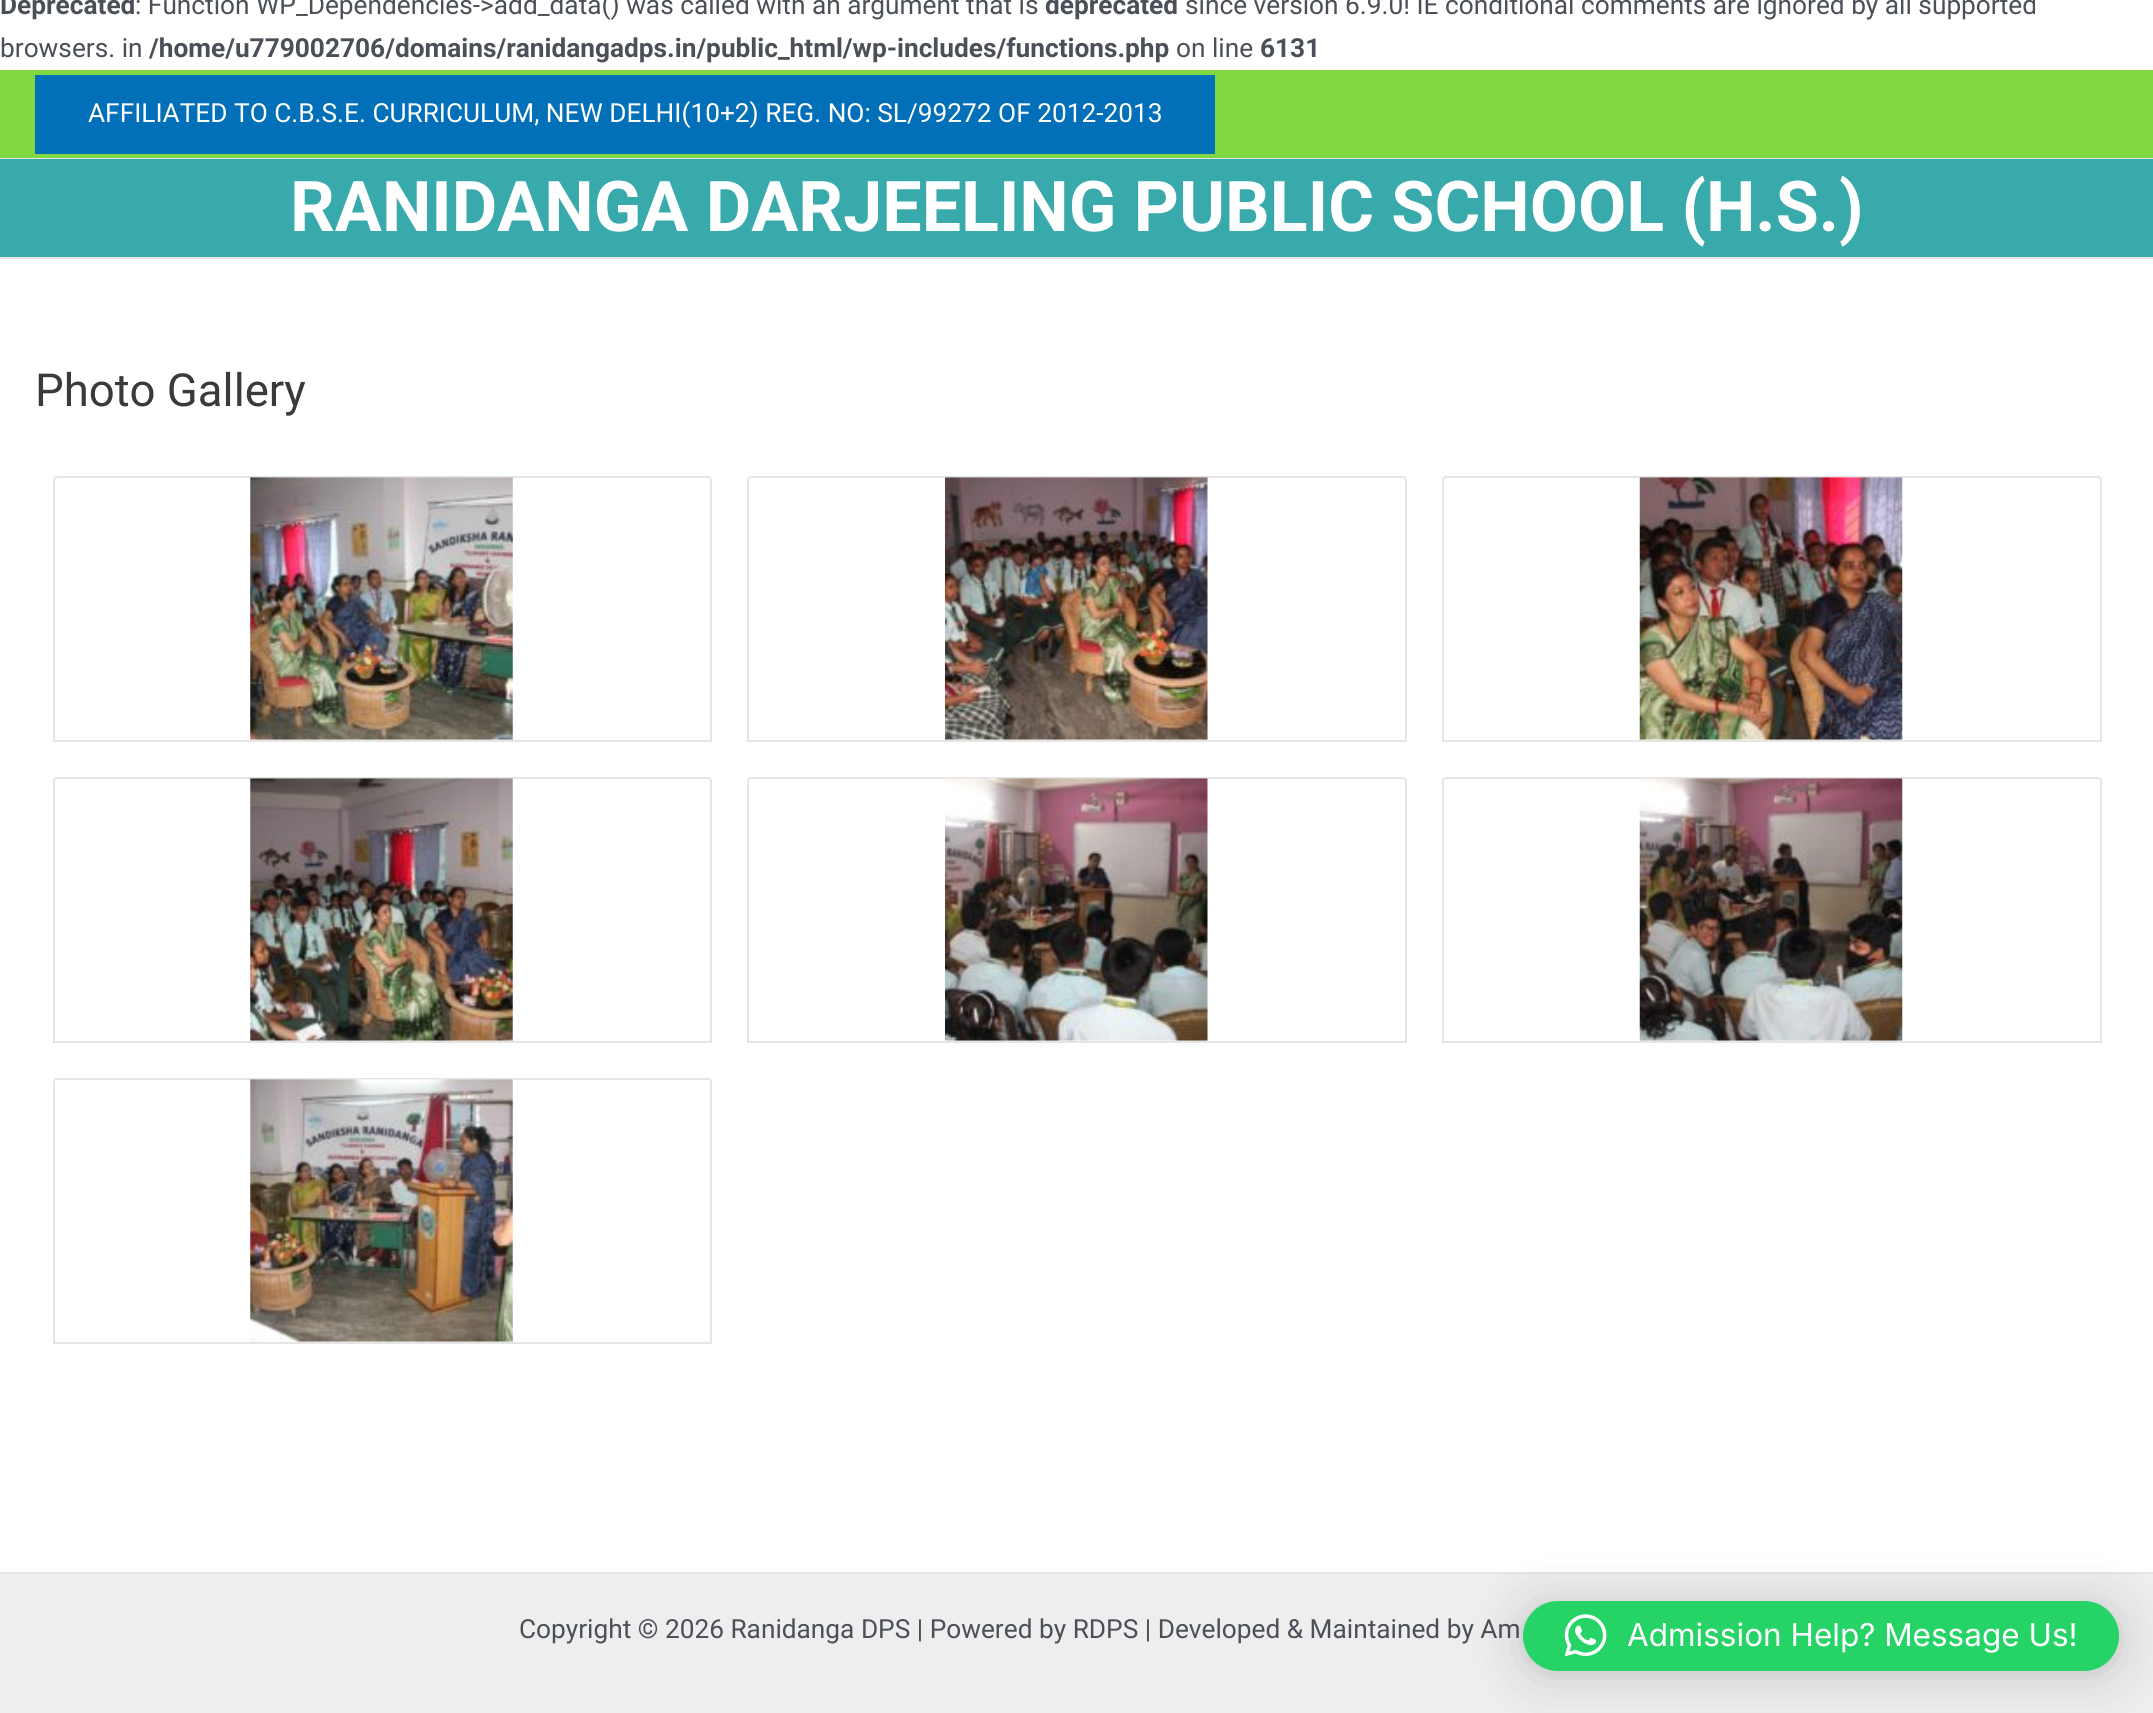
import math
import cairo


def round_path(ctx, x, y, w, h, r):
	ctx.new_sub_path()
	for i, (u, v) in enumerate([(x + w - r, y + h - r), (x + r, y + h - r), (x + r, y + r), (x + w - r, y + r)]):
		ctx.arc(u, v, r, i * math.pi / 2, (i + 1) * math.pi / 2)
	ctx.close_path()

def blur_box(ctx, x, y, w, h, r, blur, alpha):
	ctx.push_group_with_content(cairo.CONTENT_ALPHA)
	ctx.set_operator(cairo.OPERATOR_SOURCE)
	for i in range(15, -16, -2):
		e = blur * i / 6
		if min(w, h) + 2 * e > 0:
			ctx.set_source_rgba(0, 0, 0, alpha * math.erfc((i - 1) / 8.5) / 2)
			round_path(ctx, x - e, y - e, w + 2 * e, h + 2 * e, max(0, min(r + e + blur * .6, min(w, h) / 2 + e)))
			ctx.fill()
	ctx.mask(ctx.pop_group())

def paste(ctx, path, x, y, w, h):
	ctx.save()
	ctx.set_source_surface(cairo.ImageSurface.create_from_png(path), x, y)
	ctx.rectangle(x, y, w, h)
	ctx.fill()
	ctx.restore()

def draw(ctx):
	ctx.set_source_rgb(1, 1, 1)
	ctx.paint()
	ctx.select_font_face('Roboto', cairo.FONT_SLANT_NORMAL, cairo.FONT_WEIGHT_BOLD)
	ctx.set_font_size(26.25)
	ctx.set_source_rgb(0.294, 0.31, 0.345)
	ctx.move_to(0, 14)
	ctx.show_text('Deprecated')
	ctx.select_font_face('Roboto')
	ctx.move_to(135, 14)
	ctx.show_text(': Function WP_Dependencies->add_data() was called with an argument that is')
	ctx.select_font_face('Roboto', cairo.FONT_SLANT_NORMAL, cairo.FONT_WEIGHT_BOLD)
	ctx.move_to(1045, 14)
	ctx.show_text('deprecated')
	ctx.select_font_face('Roboto')
	ctx.move_to(1185, 14)
	ctx.show_text('since version 6.9.0! IE conditional comments are ignored by all supported')
	ctx.move_to(0, 57)
	ctx.show_text('browsers. in')
	ctx.select_font_face('Roboto', cairo.FONT_SLANT_NORMAL, cairo.FONT_WEIGHT_BOLD)
	ctx.move_to(149, 57)
	ctx.show_text('/home/u779002706/domains/ranidangadps.in/public_html/wp-includes/functions.php')
	ctx.select_font_face('Roboto')
	ctx.move_to(1176, 57)
	ctx.show_text('on line')
	ctx.select_font_face('Roboto', cairo.FONT_SLANT_NORMAL, cairo.FONT_WEIGHT_BOLD)
	ctx.move_to(1260, 57)
	ctx.show_text('6131')
	ctx.set_source_rgb(0.506, 0.843, 0.259)
	ctx.rectangle(0, 70, 2153, 88)
	ctx.fill()
	ctx.set_source_rgb(0.898, 0.898, 0.898)
	ctx.rectangle(0, 158, 2153, 1)
	ctx.fill()
	ctx.set_source_rgb(0.004, 0.439, 0.725)
	ctx.rectangle(35, 75, 1180, 79)
	ctx.fill()
	ctx.select_font_face('Roboto')
	ctx.set_source_rgb(1, 1, 1)
	ctx.move_to(88, 122)
	ctx.show_text('AFFILIATED TO C.B.S.E. CURRICULUM, NEW DELHI(10+2) REG. NO: SL/99272 OF 2012-2013')
	ctx.set_source_rgb(0.22, 0.667, 0.671)
	ctx.rectangle(0, 159, 2153, 98)
	ctx.fill()
	ctx.set_source_rgb(0.898, 0.898, 0.898)
	ctx.rectangle(0, 257, 2153, 2)
	ctx.fill()
	ctx.select_font_face('Roboto', cairo.FONT_SLANT_NORMAL, cairo.FONT_WEIGHT_BOLD)
	ctx.set_font_size(70)
	ctx.set_source_rgb(1, 1, 1)
	ctx.move_to(290, 231)
	ctx.show_text('RANIDANGA DARJEELING PUBLIC SCHOOL (H.S.)')
	ctx.select_font_face('Roboto')
	ctx.set_font_size(45.5)
	ctx.set_source_rgb(0.227, 0.227, 0.227)
	ctx.move_to(35, 406)
	ctx.show_text('Photo Gallery')
	ctx.new_path()
	ctx.move_to(57, 477)
	ctx.line_to(708, 477)
	ctx.curve_to(709.5, 477, 711, 478.5, 711, 480)
	ctx.line_to(711, 741)
	ctx.line_to(54, 741)
	ctx.line_to(54, 480)
	ctx.curve_to(54, 478.5, 55.5, 477, 57, 477)
	ctx.close_path()
	ctx.set_source_rgb(0.898, 0.898, 0.898)
	ctx.stroke()
	paste(ctx, 'media/1.png', 250, 477, 263, 263)
	ctx.new_path()
	ctx.move_to(751, 477)
	ctx.line_to(1403, 477)
	ctx.curve_to(1404.5, 477, 1406, 478.5, 1406, 480)
	ctx.line_to(1406, 741)
	ctx.line_to(748, 741)
	ctx.line_to(748, 480)
	ctx.curve_to(748, 478.5, 749.5, 477, 751, 477)
	ctx.close_path()
	ctx.stroke()
	paste(ctx, 'media/2.png', 945, 477, 263, 263)
	ctx.new_path()
	ctx.move_to(1446, 477)
	ctx.line_to(2098, 477)
	ctx.curve_to(2099.5, 477, 2101, 478.5, 2101, 480)
	ctx.line_to(2101, 741)
	ctx.line_to(1443, 741)
	ctx.line_to(1443, 480)
	ctx.curve_to(1443, 478.5, 1444.5, 477, 1446, 477)
	ctx.close_path()
	ctx.stroke()
	paste(ctx, 'media/3.png', 1639, 477, 264, 263)
	ctx.new_path()
	ctx.move_to(57, 778)
	ctx.line_to(708, 778)
	ctx.curve_to(709.5, 778, 711, 779.5, 711, 781)
	ctx.line_to(711, 1042)
	ctx.line_to(54, 1042)
	ctx.line_to(54, 781)
	ctx.curve_to(54, 779.5, 55.5, 778, 57, 778)
	ctx.close_path()
	ctx.stroke()
	paste(ctx, 'media/4.png', 250, 778, 263, 263)
	ctx.new_path()
	ctx.move_to(751, 778)
	ctx.line_to(1403, 778)
	ctx.curve_to(1404.5, 778, 1406, 779.5, 1406, 781)
	ctx.line_to(1406, 1042)
	ctx.line_to(748, 1042)
	ctx.line_to(748, 781)
	ctx.curve_to(748, 779.5, 749.5, 778, 751, 778)
	ctx.close_path()
	ctx.stroke()
	paste(ctx, 'media/5.png', 945, 778, 263, 263)
	ctx.new_path()
	ctx.move_to(1446, 778)
	ctx.line_to(2098, 778)
	ctx.curve_to(2099.5, 778, 2101, 779.5, 2101, 781)
	ctx.line_to(2101, 1042)
	ctx.line_to(1443, 1042)
	ctx.line_to(1443, 781)
	ctx.curve_to(1443, 779.5, 1444.5, 778, 1446, 778)
	ctx.close_path()
	ctx.stroke()
	paste(ctx, 'media/6.png', 1639, 778, 264, 263)
	ctx.new_path()
	ctx.move_to(57, 1079)
	ctx.line_to(708, 1079)
	ctx.curve_to(709.5, 1079, 711, 1080.5, 711, 1082)
	ctx.line_to(711, 1343)
	ctx.line_to(54, 1343)
	ctx.line_to(54, 1082)
	ctx.curve_to(54, 1080.5, 55.5, 1079, 57, 1079)
	ctx.close_path()
	ctx.stroke()
	paste(ctx, 'media/7.png', 250, 1079, 263, 263)
	ctx.set_source_rgb(0.933, 0.933, 0.933)
	ctx.rectangle(0, 1574, 2153, 139)
	ctx.fill()
	ctx.set_source_rgb(0.898, 0.898, 0.898)
	ctx.rectangle(0, 1572, 2153, 2)
	ctx.fill()
	ctx.set_font_size(26.25)
	ctx.set_source_rgb(0.294, 0.31, 0.345)
	ctx.move_to(519, 1638)
	ctx.show_text('Copyright © 2026 Ranidanga DPS | Powered by RDPS | Developed & Maintained by Am')
	ctx.set_source_rgb(0, 0, 0)
	blur_box(ctx, 1523, 1605, 596, 70, 35, 28, 0.16)
	blur_box(ctx, 1523, 1603, 596, 70, 35, 5, 0.06)
	ctx.set_source_rgb(0.145, 0.827, 0.4)
	round_path(ctx, 1523, 1601, 596, 70, 35)
	ctx.fill()
	paste(ctx, 'media/8.png', 1564, 1614, 43, 43)
	ctx.select_font_face('Inter')
	ctx.set_font_size(31.5)
	ctx.set_source_rgb(1, 1, 1)
	ctx.move_to(1627, 1646)
	ctx.show_text('Admission Help? Message Us!')


surface = cairo.ImageSurface(cairo.FORMAT_RGB24, 2153, 1713)
ctx = cairo.Context(surface)
options = cairo.FontOptions()
options.set_hint_metrics(cairo.HINT_METRICS_OFF)
options.set_hint_style(cairo.HINT_STYLE_NONE)
ctx.set_font_options(options)
ctx.set_miter_limit(4)
draw(ctx)
surface.write_to_png('image.png')
